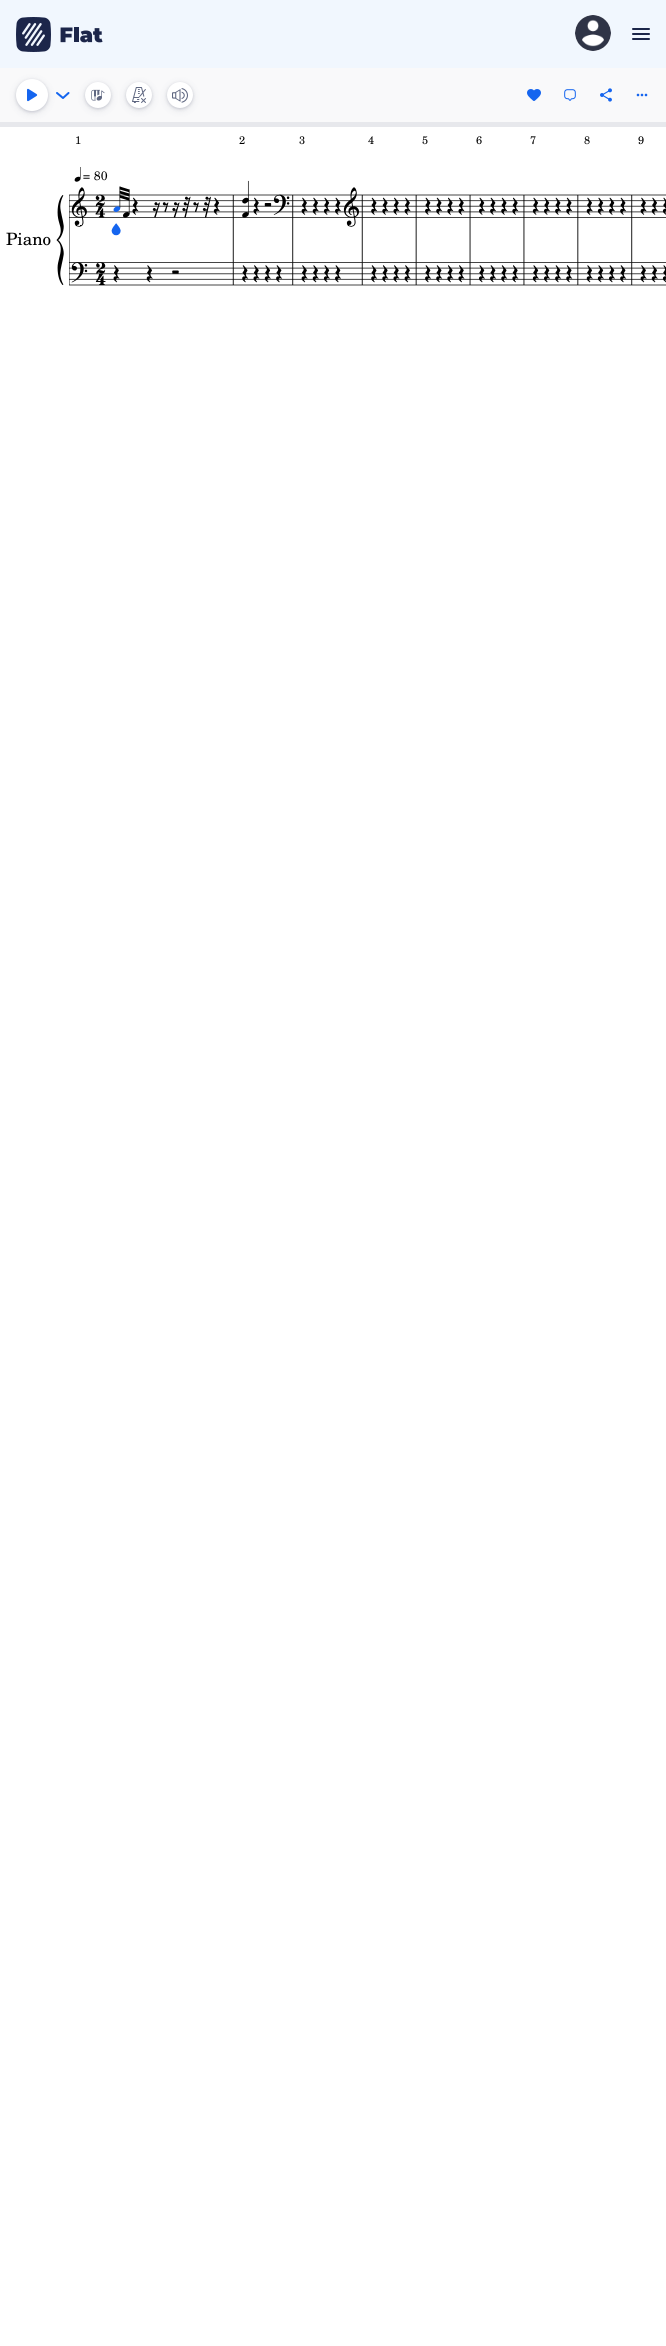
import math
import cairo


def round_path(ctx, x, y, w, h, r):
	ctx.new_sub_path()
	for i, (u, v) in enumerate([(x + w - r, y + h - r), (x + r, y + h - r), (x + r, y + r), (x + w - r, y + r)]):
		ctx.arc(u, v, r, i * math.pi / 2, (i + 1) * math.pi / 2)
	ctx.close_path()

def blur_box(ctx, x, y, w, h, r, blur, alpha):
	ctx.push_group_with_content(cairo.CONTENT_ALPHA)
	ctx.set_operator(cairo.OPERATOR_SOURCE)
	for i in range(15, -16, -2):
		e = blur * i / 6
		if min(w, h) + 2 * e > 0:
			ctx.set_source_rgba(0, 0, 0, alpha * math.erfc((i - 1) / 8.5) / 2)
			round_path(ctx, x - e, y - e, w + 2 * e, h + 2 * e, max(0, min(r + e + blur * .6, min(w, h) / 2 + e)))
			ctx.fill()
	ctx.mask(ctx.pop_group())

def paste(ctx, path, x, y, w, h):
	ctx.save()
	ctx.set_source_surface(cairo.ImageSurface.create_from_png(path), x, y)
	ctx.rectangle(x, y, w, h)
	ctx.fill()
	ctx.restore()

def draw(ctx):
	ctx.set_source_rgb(1, 1, 1)
	ctx.paint()
	ctx.set_source_rgb(0.945, 0.965, 0.996)
	ctx.rectangle(0, 0, 666, 68)
	ctx.fill()
	paste(ctx, 'media/1.png', 16, 17, 87, 35)
	ctx.set_source_rgb(1, 1, 1)
	ctx.arc(593, 33, 18, 0, 2 * math.pi)
	ctx.fill()
	paste(ctx, 'media/2.png', 575, 15, 36, 36)
	ctx.set_source_rgb(0.11, 0.149, 0.29)
	round_path(ctx, 632, 28, 18, 2, 1)
	ctx.fill()
	round_path(ctx, 632, 33, 18, 2, 1)
	ctx.fill()
	round_path(ctx, 632, 38, 18, 2, 1)
	ctx.fill()
	ctx.set_source_rgb(0.976, 0.976, 0.98)
	ctx.rectangle(0, 68, 666, 54)
	ctx.fill()
	ctx.set_source_rgb(0.157, 0.188, 0.31)
	blur_box(ctx, 16, 80, 32, 32, 16, 1.5, 0.2)
	blur_box(ctx, 16, 81, 32, 32, 16, 4, 0.1)
	ctx.set_source_rgb(1, 1, 1)
	ctx.arc(32, 95, 16, 0, 2 * math.pi)
	ctx.fill()
	paste(ctx, 'media/3.png', 27, 88, 11, 14)
	ctx.new_path()
	ctx.move_to(57, 93)
	ctx.line_to(63, 98)
	ctx.line_to(68.5, 93)
	ctx.set_source_rgb(0.082, 0.396, 0.937)
	ctx.set_line_cap(cairo.LINE_CAP_ROUND)
	ctx.set_line_join(cairo.LINE_JOIN_ROUND)
	ctx.stroke()
	ctx.set_source_rgb(0.157, 0.188, 0.31)
	blur_box(ctx, 85, 83, 26, 26, 13, 1.5, 0.2)
	blur_box(ctx, 85, 84, 26, 26, 13, 4, 0.1)
	ctx.set_source_rgb(1, 1, 1)
	ctx.arc(98, 95, 13, 0, 2 * math.pi)
	ctx.fill()
	paste(ctx, 'media/4.png', 91, 89, 14, 12)
	ctx.set_source_rgb(0.157, 0.188, 0.31)
	blur_box(ctx, 126, 83, 26, 26, 13, 1.5, 0.2)
	blur_box(ctx, 126, 84, 26, 26, 13, 4, 0.1)
	ctx.set_source_rgb(1, 1, 1)
	ctx.arc(139, 95, 13, 0, 2 * math.pi)
	ctx.fill()
	paste(ctx, 'media/5.png', 132, 87, 14, 16)
	ctx.set_source_rgb(0.157, 0.188, 0.31)
	blur_box(ctx, 167, 83, 26, 26, 13, 1.5, 0.2)
	blur_box(ctx, 167, 84, 26, 26, 13, 4, 0.1)
	ctx.set_source_rgb(1, 1, 1)
	ctx.arc(180, 95, 13, 0, 2 * math.pi)
	ctx.fill()
	paste(ctx, 'media/6.png', 172, 88, 16, 15)
	paste(ctx, 'media/7.png', 527, 89, 14, 12)
	paste(ctx, 'media/8.png', 564, 89, 12, 12)
	paste(ctx, 'media/9.png', 600, 88, 12, 14)
	paste(ctx, 'media/10.png', 636, 93, 12, 4)
	ctx.set_source_rgb(0.906, 0.91, 0.925)
	ctx.rectangle(0, 122, 666, 5)
	ctx.fill()
	ctx.select_font_face('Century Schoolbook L')
	ctx.set_font_size(11)
	ctx.set_source_rgb(0, 0, 0)
	for x, y, s in [
		(75, 144, '1'),
		(239, 144, '2'),
		(299, 144, '3'),
		(368, 144, '4'),
		(422, 144, '5'),
		(476, 144, '6'),
		(530, 144, '7'),
		(584, 144, '8'),
		(638, 144, '9'),
	]:
		ctx.move_to(x, y)
		ctx.show_text(s)
	paste(ctx, 'media/11.png', 69, 167, 597, 119)
	paste(ctx, 'media/12.png', 56, 195, 8, 90)
	ctx.set_font_size(17)
	ctx.move_to(6, 245)
	ctx.show_text('Piano')


surface = cairo.ImageSurface(cairo.FORMAT_RGB24, 666, 2346)
ctx = cairo.Context(surface)
options = cairo.FontOptions()
options.set_hint_metrics(cairo.HINT_METRICS_OFF)
options.set_hint_style(cairo.HINT_STYLE_NONE)
ctx.set_font_options(options)
ctx.set_miter_limit(4)
draw(ctx)
surface.write_to_png('image.png')
